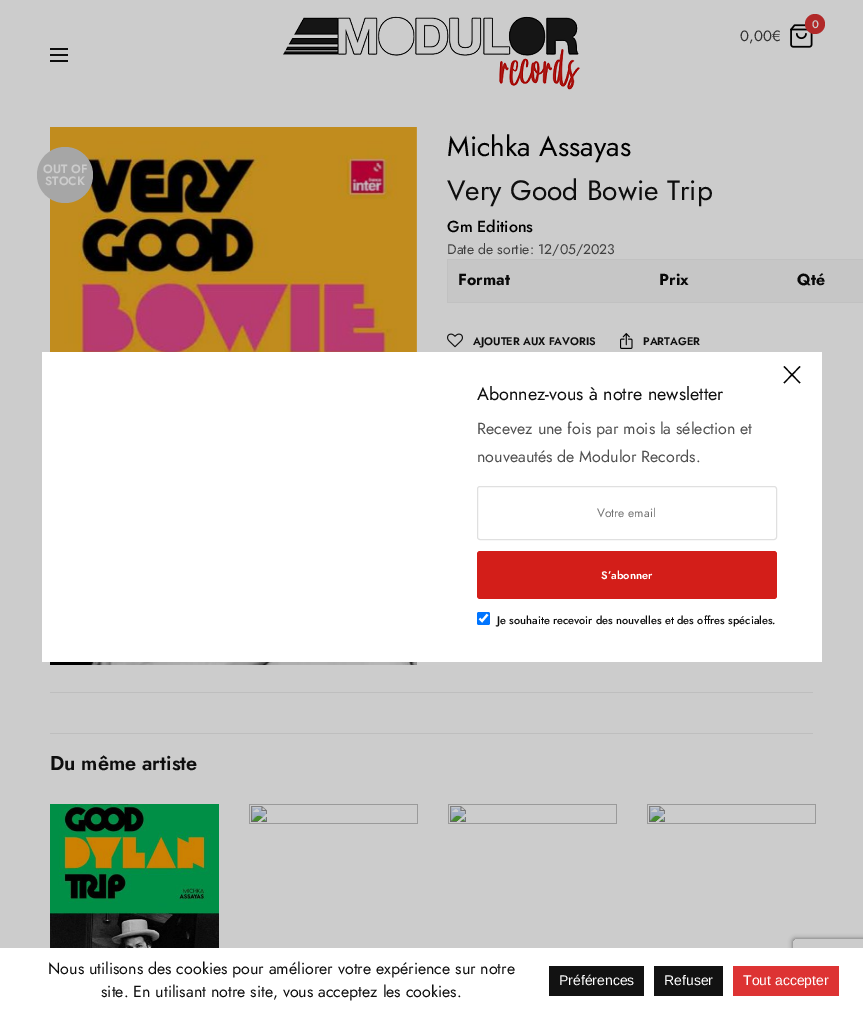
%!PS
<< /PageSize [863 1013] /PageUsesTransparency true >> setpagedevice
/mt/moveto load def
/li/lineto load def
/ct/curveto load def
/cp/closepath load def
/fl/fill load def
/st/stroke load def
/gs/gsave load def
/gr/grestore load def
/lw/setlinewidth load def
/co { dup -16 bitshift 255 div exch dup -8 bitshift 255 and 255 div exch 255 and 255 div setrgbcolor } def
/fn { [ exch dup neg 0 0 3 -1 roll 0 0 ] selectfont } def
/tx { co fn moveto show } def
/bx { co rectfill } def
/al { dup .setfillconstantalpha .setstrokeconstantalpha } def
/ci { newpath 0 360 arc closepath } def
/rr { 5 dict begin { /r /h /w /y /x } { exch def } forall
  x r add y moveto x w add y 2 copy h add r arct x w add y h add x 1 index r arct
  x y h add x y r arct x y 2 copy exch w add exch r arct closepath end } def
/sh { 12 dict begin { /a /b /q /h /w /y /x } { exch def } forall gsave /was 0 def
  9 -2 -9 { dup b mul 4 div /e exch def 1 sub .425 mul 2.718 exch exp 1 add a .99 .min exch div /now exch def
    1 1 now sub 1 was sub div sub al /was now def
    w h .min e 2 mul add 0 gt { x e sub y e sub w e 2 mul add h e 2 mul add
      q e add b .6 mul add w h .min 2 div e add .min 0 .max rr fill } if } for grestore end } def
/im { 5 dict begin { /h /w /y /x /name } { exch def } forall
  gsave x y translate w h scale
  w h 8 [w 0 0 h 0 0] name (r) file false 3 colorimage grestore end } def
0 .pushpdf14devicefilter
0 1013 translate 1 -1 scale
4 setmiterlimit
0 0 863 1013 16#CCCCCC bx
(media/1.raw) 283 16 297 74 im
(media/2.raw) 790 24 23 24 im
16#B12929 co
815 24 10 ci fl
50 48 18 2 16#0E0E0E bx
50 54 18 2 16#0E0E0E bx
50 60 18 2 16#0E0E0E bx
(media/3.raw) 50 127 367 538 im
16#A6A6A6 co
65 175 28 ci fl
448 260 415 42 16#C6C6C6 bx
447 259 416 1 16#C1C1C1 bx
447 302 416 1 16#C1C1C1 bx
447 259 1 44 16#C1C1C1 bx
(media/4.raw) 447 333 16 15 im
(media/5.raw) 620 333 13 16 im
50 692 763 1 16#BEBEBE bx
50 733 763 1 16#BEBEBE bx
(media/6.raw) 50 804 169 144 im
(media/7.raw) 249 804 169 20 im
(media/7.raw) 448 804 169 20 im
(media/7.raw) 647 804 169 20 im
42 352 780 310 16#FFFFFF bx
16#000000 co
1.2 lw
784 366.5 mt 800 383 li 784 383 mt 800 366.5 li st
16#E0E0E0 co
1 lw
477.5 486.5 299 53 2.5 rr st
16#D31E19 co
477 551 300 48 3 rr fl
16#0075FF co
477 612 13 13 2 rr fl
16#FFFFFF co
2.1 lw
479.5 618.5 mt 482 621 li 487.5 614.5 li st
gs
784 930 mt 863 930 li 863 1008 li 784 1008 li cp 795 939 mt 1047 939 li 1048 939 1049 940 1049 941 ct 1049 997 li 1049 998 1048 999 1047 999 ct 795 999 li 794 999 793 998 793 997 ct 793 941 li 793 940 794 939 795 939 ct cp eoclip newpath
16#666666 co
793 939 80 60 2 2.5 1 sh
gr
0 948 863 65 16#FFFFFF bx
549 966 95 30 16#121212 bx
654 966 69 30 16#121212 bx
733 966 106 30 16#DD3333 bx
(0) 812 28 /Jost-Medium 11 16#CCCCCC tx
(0,00€) 740 41 /Jost-Regular 15 16#333333 tx
(OUT OF) 43 173 /Jost-SemiBold 12 16#CCCCCC tx
(STOCK) 45 185 /Jost-SemiBold 12 16#CCCCCC tx
(Michka Assayas) 447 156 /Jost-Regular 28 16#000000 tx
(Very Good Bowie Trip) 447 200 /Jost-Regular 28 16#0E0E0E tx
(Gm Editions) 447 232 /Jost-Medium 16 16#000000 tx
(Date de sortie: 12/05/2023) 447 254 /Jost-Regular 14 16#3F3F3F tx
(Format) 458 285 /Jost-Bold 16 16#080808 tx
(Prix) 659 285 /Jost-Bold 16 16#080808 tx
(Qté) 797 285 /Jost-Bold 16 16#080808 tx
(AJOUTER AUX FAVORIS) 473 345 /Jost-SemiBold 11 16#0E0E0E tx
(PARTAGER) 643 345 /Jost-SemiBold 11 16#0E0E0E tx
(Du même artiste) 50 770 /Jost-SemiBold 20 16#0E0E0E tx
(Abonnez-vous à notre newsletter) 477 400 /Jost-Regular 18 16#0E0E0E tx
(Recevez une fois par mois la sélection et) 477 434 /Jost-Regular 16 16#4F4F4F tx
(nouveautés de Modulor Records.) 477 462 /Jost-Regular 16 16#4F4F4F tx
(Votre email) 597 517 /Jost-Regular 12 16#717171 tx
(S’abonner) 601 579 /Jost-SemiBold 11 16#FFFFFF tx
(Je souhaite recevoir des nouvelles et des offres spéciales.) 497 624 /Jost-Medium 11 16#0E0E0E tx
(Nous utilisons des cookies pour améliorer votre expérience sur notre) 48 974 /Jost-Regular 16 16#0E0E0E tx
(site. En utilisant notre site, vous acceptez les cookies.) 101 997 /Jost-Regular 16 16#0E0E0E tx
(Préférences) 559 985 /LiberationSans-Regular 14 16#FFFFFF tx
(Refuser) 664 985 /LiberationSans-Regular 14 16#FFFFFF tx
(Tout accepter) 743 985 /LiberationSans-Regular 14 16#FFFFFF tx
.poppdf14devicefilter showpage
